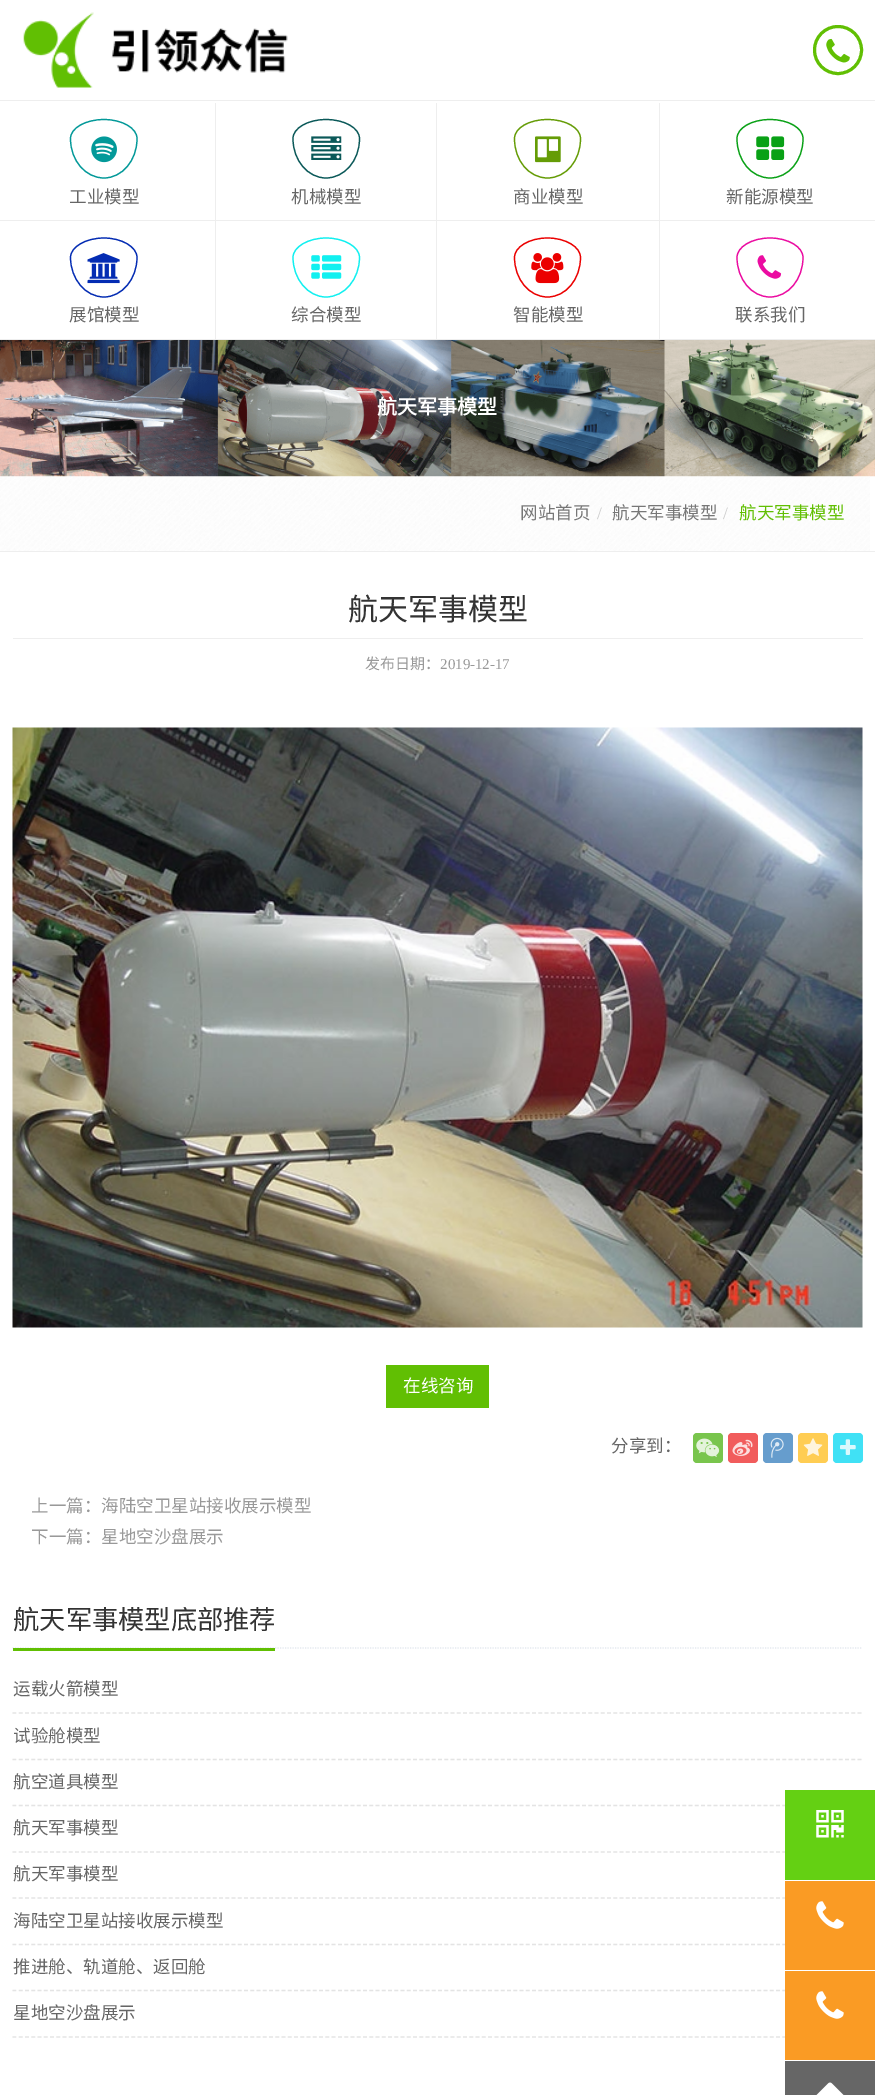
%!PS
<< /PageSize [875 2095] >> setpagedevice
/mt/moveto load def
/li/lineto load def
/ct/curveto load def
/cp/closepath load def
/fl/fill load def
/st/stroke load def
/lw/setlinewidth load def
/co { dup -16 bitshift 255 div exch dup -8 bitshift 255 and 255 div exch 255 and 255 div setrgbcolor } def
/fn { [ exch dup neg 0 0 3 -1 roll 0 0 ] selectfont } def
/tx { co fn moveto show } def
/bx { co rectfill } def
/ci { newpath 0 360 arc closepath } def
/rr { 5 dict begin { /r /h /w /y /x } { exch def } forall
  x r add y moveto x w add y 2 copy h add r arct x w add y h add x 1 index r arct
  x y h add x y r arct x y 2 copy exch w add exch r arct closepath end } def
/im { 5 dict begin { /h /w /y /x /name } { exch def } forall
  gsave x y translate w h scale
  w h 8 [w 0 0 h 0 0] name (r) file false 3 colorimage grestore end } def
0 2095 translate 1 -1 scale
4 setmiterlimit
0 0 875 2095 16#FFFFFF bx
0 100 875 1 16#EEEEEE bx
(media/1.raw) 23 12 265 76 im
16#61BF03 co
3 lw
838 50 23.5 ci st
(media/2.raw) 826 38 24 25 im
215 103 1 237 16#EEEEEE bx
0 220 216 1 16#EEEEEE bx
16#039999 co
1.2 lw
104 119.5 mt 122 119.5 137 128 137 138.5 ct 137 139 li 137 160.5 122 178 104 178 ct 85.5 178 70.5 160.5 70.5 139 ct 70.5 138.5 li 70.5 128 85.5 119.5 104 119.5 ct cp st
(media/3.raw) 91 136 26 27 im
436 103 1 237 16#EEEEEE bx
216 220 222 1 16#EEEEEE bx
16#0B5959 co
326 119.5 mt 344.5 119.5 359.5 128 359.5 138.5 ct 359.5 139 li 359.5 160.5 344.5 178 326 178 ct 308 178 293 160.5 293 139 ct 293 138.5 li 293 128 308 119.5 326 119.5 ct cp st
(media/4.raw) 311 136 31 24 im
659 103 1 237 16#EEEEEE bx
438 220 437 1 16#EEEEEE bx
16#659C06 co
547.5 119.5 mt 566 119.5 580.5 128 580.5 138.5 ct 580.5 139 li 580.5 160.5 566 178 547.5 178 ct 529 178 514.5 160.5 514.5 139 ct 514.5 138.5 li 514.5 128 529 119.5 547.5 119.5 ct cp st
(media/5.raw) 535 136 26 27 im
16#09A116 co
770 119.5 mt 788.5 119.5 803 128 803 138.5 ct 803 139 li 803 160.5 788.5 178 770 178 ct 751.5 178 737 160.5 737 139 ct 737 138.5 li 737 128 751.5 119.5 770 119.5 ct cp st
(media/6.raw) 756 136 29 24 im
0 339 875 1 16#EEEEEE bx
16#042CB3 co
104 238 mt 122 238 137 247 137 257.5 ct 137 279 122 297 104 297 ct 85.5 297 70.5 279 70.5 257.5 ct 70.5 247 85.5 238 104 238 ct cp st
(media/7.raw) 87 253 33 31 im
16#11F0F0 co
326 238 mt 344.5 238 359.5 247 359.5 257.5 ct 359.5 279 344.5 297 326 297 ct 308 297 293 279 293 257.5 ct 293 247 308 238 326 238 ct cp st
(media/8.raw) 311 255 31 24 im
16#EB0000 co
547.5 238 mt 566 238 580.5 247 580.5 257.5 ct 580.5 279 566 297 547.5 297 ct 529 297 514.5 279 514.5 257.5 ct 514.5 247 529 238 547.5 238 ct cp st
(media/9.raw) 531 253 33 31 im
16#EB0CA1 co
770 238 mt 788.5 238 803 247 803 257.5 ct 803 279 788.5 297 770 297 ct 751.5 297 737 279 737 257.5 ct 737 247 751.5 238 770 238 ct cp st
(media/10.raw) 757 255 25 24 im
(media/11.raw) 0 340 875 137 im
(media/12.raw) 0 477 870 74 im
0 551 875 1 16#EEEEEE bx
13 638 850 1 16#EEEEEE bx
(media/13.raw) 12 727 851 601 im
386 1365 103 43 16#61BF03 bx
16#79C54D co
693 1433 30 30 4 rr fl
(media/14.raw) 696 1438 24 19 im
16#F15C5C co
728 1433 30 30 4 rr fl
(media/15.raw) 732 1439 21 17 im
16#669DCD co
763 1433 30 30 4 rr fl
(media/16.raw) 770 1437 14 21 im
16#FFCD53 co
798 1433 30 30 4 rr fl
(media/17.raw) 803 1438 20 18 im
16#40E1F5 co
833 1433 30 30 4 rr fl
(media/18.raw) 840 1439 16 16 im
16#E4E9F0 co
[1.25 1.25] 0 setdash
12.5 1648 mt 862.5 1648 li st
13 1648 262 3 16#61BF03 bx
16#E4E4E4 co
[3.75 2.51] 0 setdash
12.5 1713 mt 862.5 1713 li st
12.5 1759.5 mt 862.5 1759.5 li st
12.5 1805.5 mt 862.5 1805.5 li st
12.5 1852 mt 862.5 1852 li st
12.5 1898 mt 862.5 1898 li st
12.5 1944.5 mt 862.5 1944.5 li st
12.5 1990.5 mt 862.5 1990.5 li st
12.5 2037 mt 862.5 2037 li st
785 1790 90 90 16#64D013 bx
(media/19.raw) 816 1810 28 28 im
785 1881 90 89 16#FA9B24 bx
(media/20.raw) 816 1901 28 28 im
785 1971 90 89 16#FA9B24 bx
(media/20.raw) 816 1991 28 28 im
785 2061 90 34 16#666666 bx
(media/21.raw) 816 2082 28 13 im
(工业模型) 69 203 /NotoSansCJKSC-Regular 17.5 16#666666 tx
(机械模型) 291 203 /NotoSansCJKSC-Regular 17.5 16#666666 tx
(商业模型) 513 203 /NotoSansCJKSC-Regular 17.5 16#666666 tx
(新能源模型) 726 203 /NotoSansCJKSC-Regular 17.5 16#666666 tx
(展馆模型) 69 321 /NotoSansCJKSC-Regular 17.5 16#666666 tx
(综合模型) 291 321 /NotoSansCJKSC-Regular 17.5 16#666666 tx
(智能模型) 513 321 /NotoSansCJKSC-Regular 17.5 16#666666 tx
(联系我们) 735 321 /NotoSansCJKSC-Regular 17.5 16#666666 tx
(航天军事模型) 377 414 /NotoSansCJKSC-Bold 20 16#FFFFFF tx
(网站首页) 520 519 /NotoSansCJKSC-Regular 17.5 16#777777 tx
(/) 597 519 /LiberationSerif-Regular 17.5 16#CCCCCC tx
(航天军事模型) 612 519 /NotoSansCJKSC-Regular 17.5 16#777777 tx
(/) 723 519 /LiberationSerif-Regular 17.5 16#CCCCCC tx
(航天军事模型) 739 519 /NotoSansCJKSC-Regular 17.5 16#61BF03 tx
(航天军事模型) 348 620 /NotoSansCJKSC-Regular 30 16#333333 tx
(发布日期：) 365 669 /NotoSansCJKSC-Regular 15 16#999999 tx
(2019-12-17) 440 669 /LiberationSerif-Regular 15 16#999999 tx
(在线咨询) 403 1392 /NotoSansCJKSC-Regular 17.5 16#FFFFFF tx
(分享到：) 611 1452 /NotoSansCJKSC-Regular 17.5 16#666666 tx
(上一篇：海陆空卫星站接收展示模型) 31 1512 /NotoSansCJKSC-Regular 17.5 16#999999 tx
(下一篇：星地空沙盘展示) 31 1543 /NotoSansCJKSC-Regular 17.5 16#999999 tx
(航天军事模型底部推荐) 13 1629 /NotoSansCJKSC-Regular 26.25 16#333333 tx
(运载火箭模型) 13 1695 /NotoSansCJKSC-Regular 17.5 16#666666 tx
(试验舱模型) 13 1742 /NotoSansCJKSC-Regular 17.5 16#666666 tx
(航空道具模型) 13 1788 /NotoSansCJKSC-Regular 17.5 16#666666 tx
(航天军事模型) 13 1834 /NotoSansCJKSC-Regular 17.5 16#666666 tx
(航天军事模型) 13 1880 /NotoSansCJKSC-Regular 17.5 16#666666 tx
(海陆空卫星站接收展示模型) 13 1927 /NotoSansCJKSC-Regular 17.5 16#666666 tx
(推进舱、轨道舱、返回舱) 13 1973 /NotoSansCJKSC-Regular 17.5 16#666666 tx
(星地空沙盘展示) 13 2019 /NotoSansCJKSC-Regular 17.5 16#666666 tx
showpage
